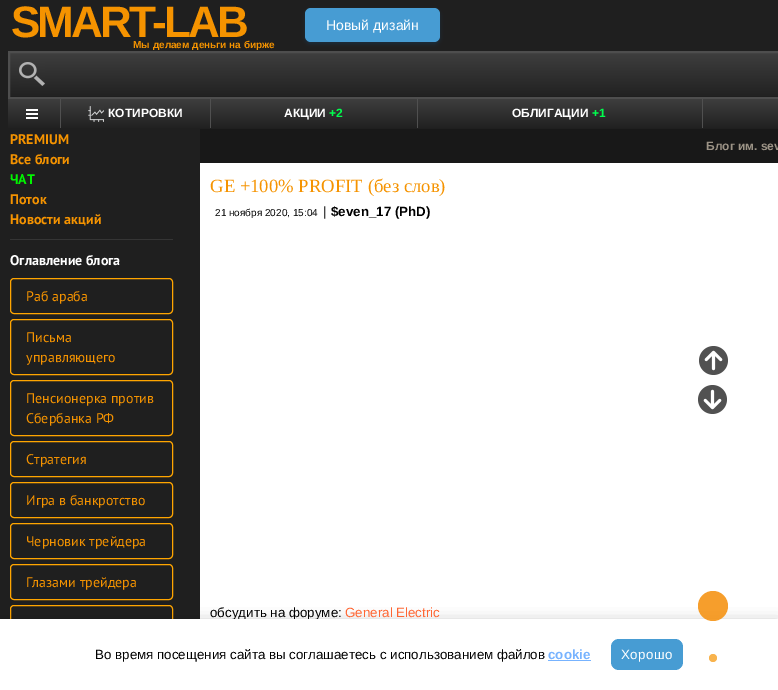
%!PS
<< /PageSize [778 690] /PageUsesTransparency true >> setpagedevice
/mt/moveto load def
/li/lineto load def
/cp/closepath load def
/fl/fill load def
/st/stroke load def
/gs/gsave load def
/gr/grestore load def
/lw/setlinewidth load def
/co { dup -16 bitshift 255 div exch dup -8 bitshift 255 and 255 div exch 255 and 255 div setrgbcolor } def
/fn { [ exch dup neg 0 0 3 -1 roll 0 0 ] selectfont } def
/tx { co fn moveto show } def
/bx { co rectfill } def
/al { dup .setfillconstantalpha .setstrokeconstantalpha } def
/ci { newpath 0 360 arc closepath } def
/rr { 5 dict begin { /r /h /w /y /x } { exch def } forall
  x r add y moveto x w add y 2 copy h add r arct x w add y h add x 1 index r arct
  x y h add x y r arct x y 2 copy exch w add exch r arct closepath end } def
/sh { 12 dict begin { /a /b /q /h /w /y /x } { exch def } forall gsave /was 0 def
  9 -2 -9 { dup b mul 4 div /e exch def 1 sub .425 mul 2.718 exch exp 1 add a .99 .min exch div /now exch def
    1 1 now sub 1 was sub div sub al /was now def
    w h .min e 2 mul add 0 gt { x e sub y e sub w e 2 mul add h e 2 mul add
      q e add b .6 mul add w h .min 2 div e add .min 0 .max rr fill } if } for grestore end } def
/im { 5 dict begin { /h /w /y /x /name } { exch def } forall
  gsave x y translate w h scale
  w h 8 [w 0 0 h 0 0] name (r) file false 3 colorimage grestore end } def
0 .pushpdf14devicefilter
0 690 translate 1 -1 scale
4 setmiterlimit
0 0 778 690 16#1F1F1F bx
16#0B5483 co
305 10 135 34 6 2 .3 sh
16#479CD3 co
305 8 135 34 6 rr fl
gs 10 53 mt 778 53 li 778 96 li 10 96 li cp clip newpath
<< /ShadingType 2 /ColorSpace /DeviceRGB /Coords [570 53 570 97] /Extend [true true] /Function << /FunctionType 2 /Domain [0 1] /C0 [.243 .243 .243] /C1 [.129 .129 .129] /N 1 >> >> shfill gr
16#4E4E4E co
2 lw
9 52 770 46 rectstroke
(media/1.raw) 19 62 26 24 im
gs 8 99 mt 778 99 li 778 128 li 8 128 li cp clip newpath
<< /ShadingType 2 /ColorSpace /DeviceRGB /Coords [570 99 570 128] /Extend [true true] /Function << /FunctionType 2 /Domain [0 1] /C0 [.243 .243 .243] /C1 [.129 .129 .129] /N 1 >> >> shfill gr
(media/2.raw) 26 109 12 10 im
60 99 1 29 16#505050 bx
(media/3.raw) 88 106 16 16 im
210 99 1 29 16#505050 bx
417 99 1 29 16#505050 bx
702 99 1 29 16#505050 bx
10 239 163 1 16#353535 bx
16#FFA500 co
1 lw
10.5 278.5 162 35 3.5 rr st
10.5 319.5 162 55 3.5 rr st
10.5 380.5 162 55 3.5 rr st
10.5 441.5 162 35 3.5 rr st
10.5 482.5 162 35 3.5 rr st
10.5 523.5 162 35 3.5 rr st
10.5 564.5 162 35 3.5 rr st
10.5 605.5 162 35 3.5 rr st
200 129 578 34 16#181818 bx
200 163 578 456 16#FFFFFF bx
(media/4.raw) 699 346 29 29 im
(media/5.raw) 698 385 29 29 im
16#000000 co
0 624 778 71 0 7.5 .35 sh
/LiberationSans-Bold 44 fn
16#F59300 co
11 37 mt -3 0 (SMART-LAB) ashow
(Мы делаем деньги на бирже) 133 48 /LiberationSans-Bold 10 16#F59300 tx
(Новый дизайн) 326 30 /LiberationSans-Regular 14 16#FFFFFF tx
(КОТИРОВКИ) 108 117 /LiberationSans-Bold 12 16#FFFFFF tx
(АКЦИИ) 284 117 /LiberationSans-Bold 12 16#FFFFFF tx
(+2) 329 117 /LiberationSans-Bold 12 16#00FF4E tx
(ОБЛИГАЦИИ) 512 117 /LiberationSans-Bold 12 16#FFFFFF tx
(+1) 592 117 /LiberationSans-Bold 12 16#00FF4E tx
(PREMIUM) 10 144 /PTSans-Bold 14 16#F59300 tx
(Все блоги) 10 164 /PTSans-Bold 14 16#F59300 tx
(ЧАТ) 10 184 /PTSans-Bold 14 16#00F500 tx
(Поток) 10 204 /PTSans-Bold 14 16#F59300 tx
(Новости акций) 10 224 /PTSans-Bold 14 16#F59300 tx
(Оглавление блога) 10 265 /PTSans-Bold 14 16#FFFFFF tx
(Раб араба) 26 301 /PTSans-Regular 14 16#F59300 tx
(Письма) 26 342 /PTSans-Regular 14 16#F59300 tx
(управляющего) 26 362 /PTSans-Regular 14 16#F59300 tx
(Пенсионерка против) 26 403 /PTSans-Regular 14 16#F59300 tx
(Сбербанка РФ) 26 423 /PTSans-Regular 14 16#F59300 tx
(Стратегия) 26 464 /PTSans-Regular 14 16#F59300 tx
(Игра в банкротство) 26 505 /PTSans-Regular 14 16#F59300 tx
(Черновик трейдера) 26 546 /PTSans-Regular 14 16#F59300 tx
(Глазами трейдера) 26 587 /PTSans-Regular 14 16#F59300 tx
(Блог им. sev) 706 150 /LiberationSans-Bold 12 16#9C9386 tx
(GE +100% PROFIT \(без слов\)) 210 192 /LiberationSerif-Regular 18.7 16#F59300 tx
(21 ноября 2020, 15:04) 215 216 /LiberationSans-Regular 10 16#000000 tx
(|) 323 216 /LiberationSans-Regular 13.35 16#000000 tx
($even_17 \(PhD\)) 331 216 /LiberationSans-Bold 13.35 16#000000 tx
(обсудить на форуме:) 210 617 /LiberationSans-Regular 13.35 16#000000 tx
(General Electric) 345 617 /LiberationSans-Regular 13.35 16#FF6633 tx
0 619 778 71 16#FFFFFF bx
16#F8B34D co
713 658 4 ci fl
0.87 al
16#F5900D co
713 606 15 ci fl
1 al
(Во время посещения сайта вы соглашаетесь с использованием файлов) 95 659 /LiberationSans-Regular 13.35 16#000000 tx
(cookie) 548 659 /LiberationSans-Bold 13.35 16#77B3FF tx
548 660 43 1 16#77B3FF bx
16#479CD3 co
611 639 72 31 8 rr fl
/LiberationSans-Regular 13.35 fn
16#FFFFFF co
621 659 mt .5 0 (Хорошо) ashow
.poppdf14devicefilter showpage
